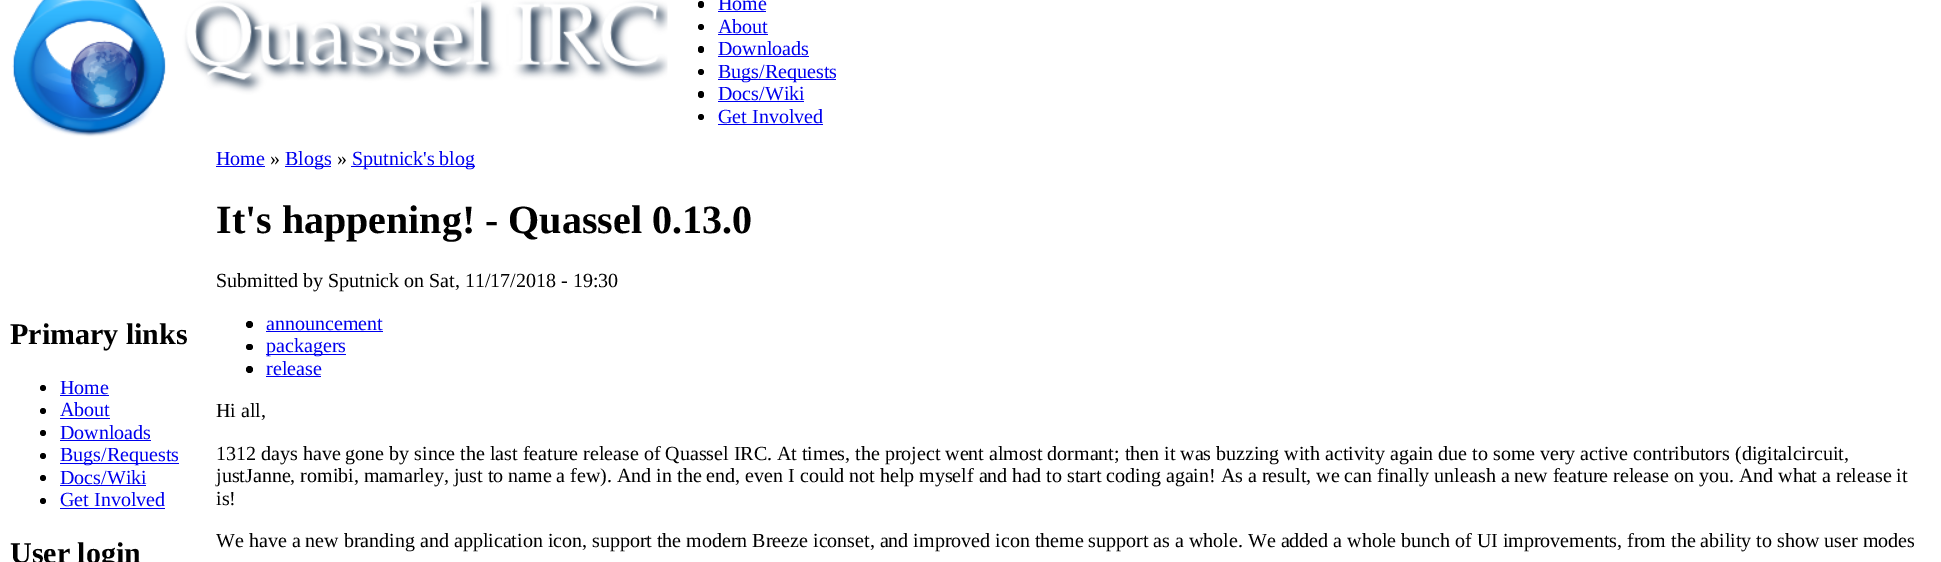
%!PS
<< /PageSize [1941 562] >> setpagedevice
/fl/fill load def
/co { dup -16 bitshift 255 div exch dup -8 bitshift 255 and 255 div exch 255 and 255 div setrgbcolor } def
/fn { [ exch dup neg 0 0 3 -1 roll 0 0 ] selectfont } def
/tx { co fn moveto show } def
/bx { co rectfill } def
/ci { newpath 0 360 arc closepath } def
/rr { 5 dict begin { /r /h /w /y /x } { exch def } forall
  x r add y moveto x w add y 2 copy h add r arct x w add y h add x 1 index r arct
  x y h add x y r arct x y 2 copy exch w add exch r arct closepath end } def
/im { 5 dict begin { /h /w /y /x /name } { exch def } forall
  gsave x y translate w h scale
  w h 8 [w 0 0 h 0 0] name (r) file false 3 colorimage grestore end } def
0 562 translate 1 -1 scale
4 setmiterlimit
0 0 1941 562 16#FFFFFF bx
(media/1.raw) 12 0 656 137 im
16#000000 co
698 1 6 7 3 rr fl
718 11 48 1 16#0000EE bx
16#000000 co
701 27 3 ci fl
718 34 50 1 16#0000EE bx
16#000000 co
698 46 6 7 3 rr fl
718 56 91 1 16#0000EE bx
16#000000 co
701 72 3 ci fl
718 79 118 1 16#0000EE bx
16#000000 co
698 91 6 7 3 rr fl
718 101 86 1 16#0000EE bx
16#000000 co
701 117 3 ci fl
718 124 105 1 16#0000EE bx
16#000000 co
43 388 3 ci fl
60 395 49 1 16#0000EE bx
16#000000 co
43 411 3 ci fl
60 418 50 1 16#0000EE bx
16#000000 co
43 433 3 ci fl
60 440 91 1 16#0000EE bx
16#000000 co
43 456 3 ci fl
60 463 119 1 16#0000EE bx
16#000000 co
43 478 3 ci fl
60 485 86 1 16#0000EE bx
16#000000 co
43 501 3 ci fl
60 508 105 1 16#0000EE bx
216 166 49 1 16#0000EE bx
285 166 46 1 16#0000EE bx
351 166 124 1 16#0000EE bx
16#000000 co
249.5 324.5 3.5 ci fl
266 331 117 1 16#0000EE bx
16#000000 co
246 344 7 6 3 rr fl
266 354 80 1 16#0000EE bx
16#000000 co
249.5 369.5 3.5 ci fl
266 376 55 1 16#0000EE bx
(Home) 718 10 /LiberationSerif-Regular 20 16#0000EE tx
(About) 718 33 /LiberationSerif-Regular 20 16#0000EE tx
(Downloads) 718 55 /LiberationSerif-Regular 20 16#0000EE tx
(Bugs/Requests) 718 78 /LiberationSerif-Regular 20 16#0000EE tx
(Docs/Wiki) 718 100 /LiberationSerif-Regular 20 16#0000EE tx
(Get Involved) 718 123 /LiberationSerif-Regular 20 16#0000EE tx
(Primary links) 10 344 /LiberationSerif-Bold 30 16#000000 tx
(Home) 60 394 /LiberationSerif-Regular 20 16#0000EE tx
(About) 60 416 /LiberationSerif-Regular 20 16#0000EE tx
(Downloads) 60 439 /LiberationSerif-Regular 20 16#0000EE tx
(Bugs/Requests) 60 461 /LiberationSerif-Regular 20 16#0000EE tx
(Docs/Wiki) 60 484 /LiberationSerif-Regular 20 16#0000EE tx
(Get Involved) 60 506 /LiberationSerif-Regular 20 16#0000EE tx
(User login) 10 563 /LiberationSerif-Bold 30 16#000000 tx
(Home) 216 165 /LiberationSerif-Regular 20 16#0000EE tx
(») 270 165 /LiberationSerif-Regular 20 16#000000 tx
(Blogs) 285 165 /LiberationSerif-Regular 20 16#0000EE tx
(») 337 165 /LiberationSerif-Regular 20 16#000000 tx
(Sputnick's blog) 352 165 /LiberationSerif-Regular 20 16#0000EE tx
(It's happening! - Quassel 0.13.0) 216 233 /LiberationSerif-Bold 40 16#000000 tx
(Submitted by Sputnick on Sat, 11/17/2018 - 19:30) 216 287 /LiberationSerif-Regular 20 16#000000 tx
(announcement) 266 330 /LiberationSerif-Regular 20 16#0000EE tx
(packagers) 266 352 /LiberationSerif-Regular 20 16#0000EE tx
(release) 266 375 /LiberationSerif-Regular 20 16#0000EE tx
(Hi all,) 216 417 /LiberationSerif-Regular 20 16#000000 tx
(1312 days have gone by since the last feature release of Quassel IRC. At times, the project went almost dormant; then it was buzzing with activity again due to some very active contributors \(digitalcircuit,) 216 460 /LiberationSerif-Regular 20 16#000000 tx
(justJanne, romibi, mamarley, just to name a few\). And in the end, even I could not help myself and had to start coding again! As a result, we can finally unleash a new feature release on you. And what a release it) 216 482 /LiberationSerif-Regular 20 16#000000 tx
(is!) 216 505 /LiberationSerif-Regular 20 16#000000 tx
(We have a new branding and application icon, support the modern Breeze iconset, and improved icon theme support as a whole. We added a whole bunch of UI improvements, from the ability to show user modes) 216 547 /LiberationSerif-Regular 20 16#000000 tx
showpage
